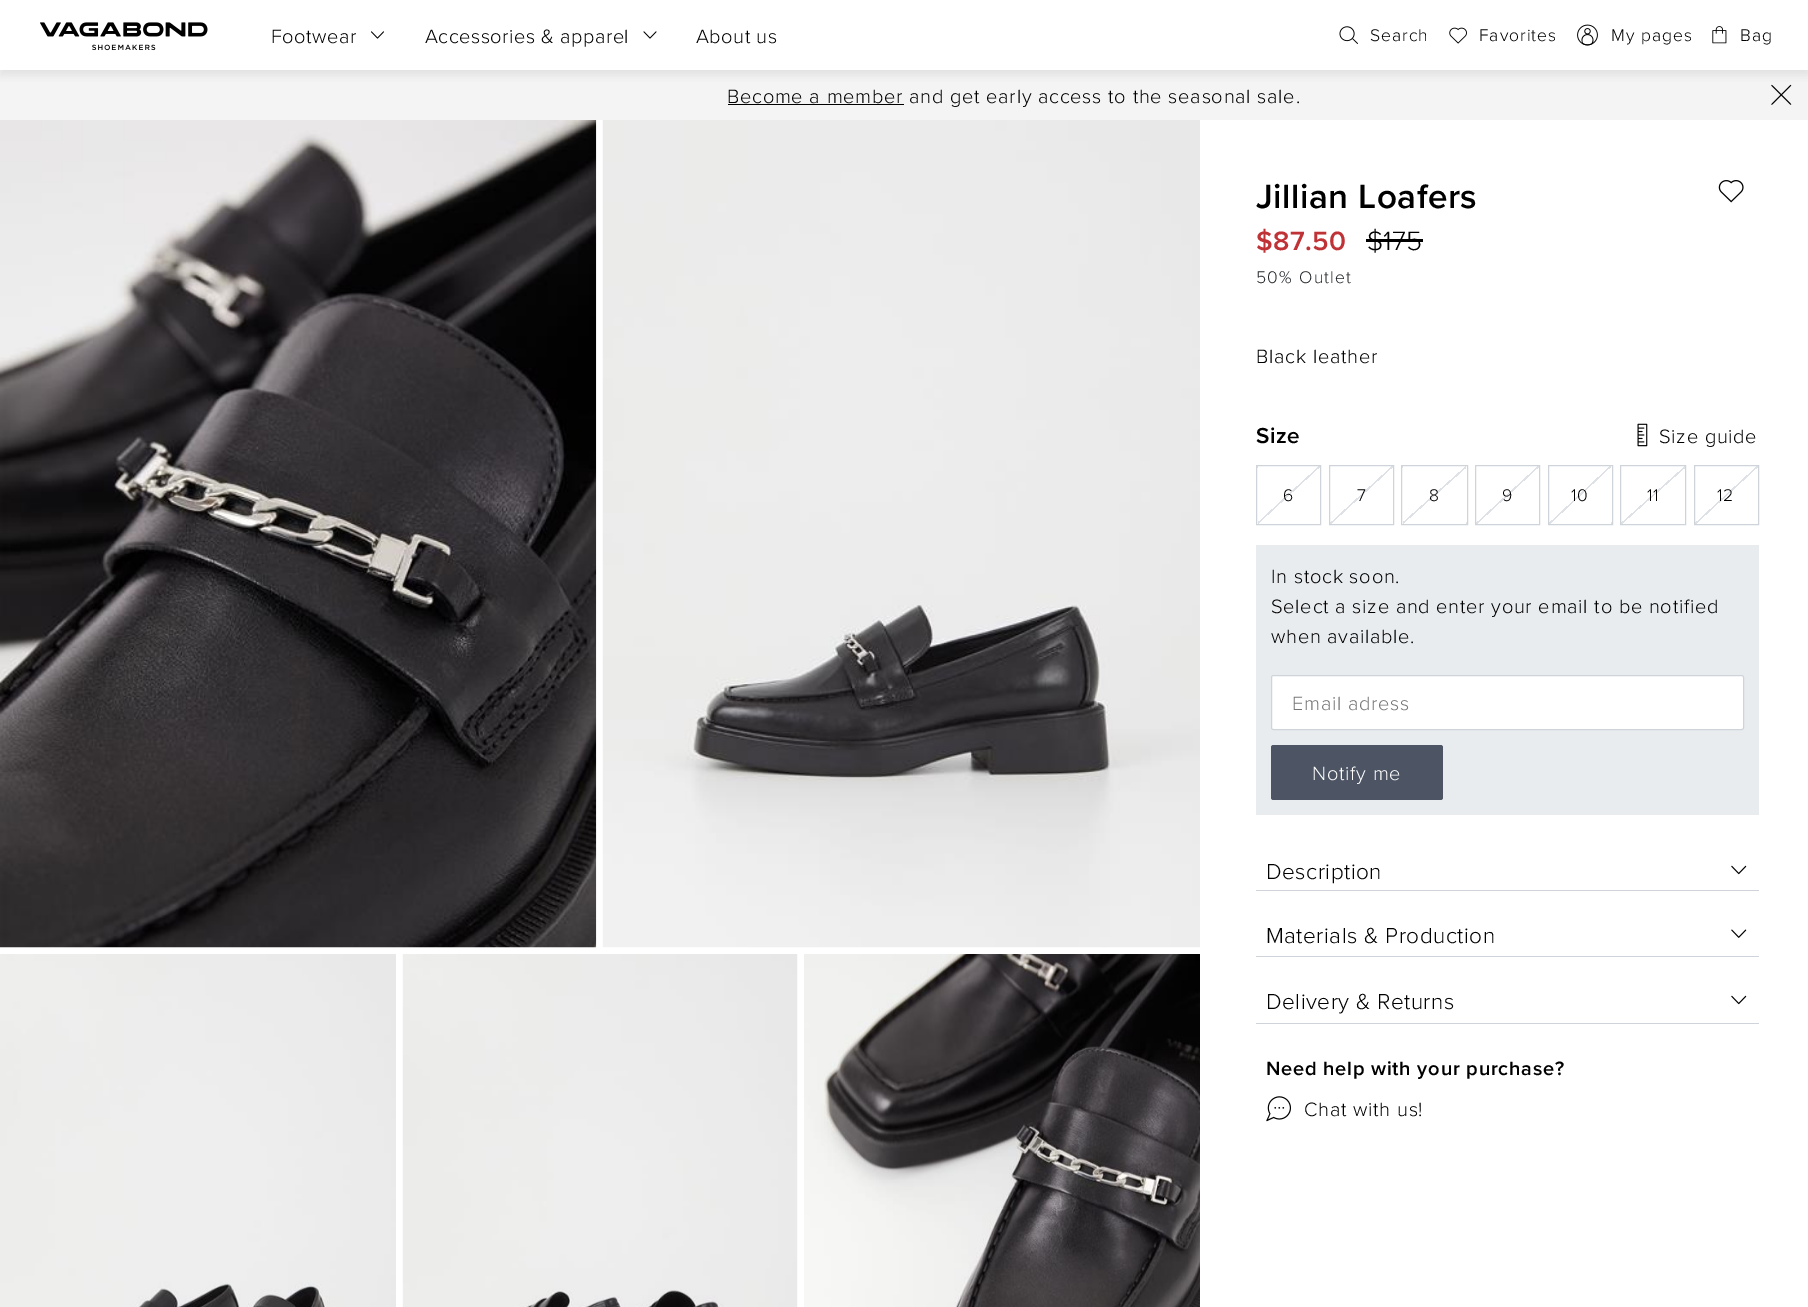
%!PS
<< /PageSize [1808 1307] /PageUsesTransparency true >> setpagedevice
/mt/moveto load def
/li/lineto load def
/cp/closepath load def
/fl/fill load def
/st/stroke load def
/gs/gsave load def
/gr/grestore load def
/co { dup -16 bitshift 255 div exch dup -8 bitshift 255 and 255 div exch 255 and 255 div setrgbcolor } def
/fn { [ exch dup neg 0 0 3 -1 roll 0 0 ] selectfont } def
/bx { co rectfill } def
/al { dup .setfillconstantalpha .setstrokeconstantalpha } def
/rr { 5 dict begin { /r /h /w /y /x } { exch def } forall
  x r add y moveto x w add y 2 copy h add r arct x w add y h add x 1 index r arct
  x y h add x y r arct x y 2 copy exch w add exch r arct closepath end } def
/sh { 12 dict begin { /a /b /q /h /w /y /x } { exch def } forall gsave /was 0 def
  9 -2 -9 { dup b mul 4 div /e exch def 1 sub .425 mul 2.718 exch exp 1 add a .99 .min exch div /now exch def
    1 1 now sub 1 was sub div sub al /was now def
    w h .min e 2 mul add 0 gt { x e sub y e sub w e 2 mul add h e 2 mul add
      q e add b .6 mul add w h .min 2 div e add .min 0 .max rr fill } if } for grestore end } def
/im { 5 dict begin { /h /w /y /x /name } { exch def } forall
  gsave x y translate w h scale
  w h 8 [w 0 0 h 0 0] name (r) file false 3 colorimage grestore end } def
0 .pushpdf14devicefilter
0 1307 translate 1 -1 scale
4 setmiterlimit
0 0 1808 1307 16#FFFFFF bx
0 70 1808 50 16#F4F4F4 bx
(media/8.raw) 1771 84 21 21 im
gs
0 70 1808 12 rectclip
16#ABABAB co
0 5 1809 70 0 5 .25 sh
gr
(media/1.raw) 40 22 168 29 im
(media/2.raw) 371 31 13 8 im
(media/3.raw) 643 31 14 8 im
(media/4.raw) 1339 26 19 18 im
(media/5.raw) 1449 27 18 17 im
(media/6.raw) 1577 24 21 22 im
(media/7.raw) 1712 26 15 18 im
728 104 176 1 16#000000 bx
(media/9.raw) 0 120 597 828 im
(media/10.raw) 602 120 598 828 im
(media/11.raw) 0 954 396 353 im
(media/12.raw) 402 954 396 353 im
(media/13.raw) 804 954 396 353 im
(media/14.raw) 1718 180 26 23 im
1366 239 18 3 16#000000 bx
1384 239 39 3 16#000000 bx
(media/15.raw) 1637 423 11 24 im
gs 1257 466 mt 1258 466 li 1258 468 li 1257 468 li cp clip newpath
<< /ShadingType 2 /ColorSpace /DeviceRGB /Coords [1198 464 1255 526] /Extend [true true] /Function << /FunctionType 3 /Domain [0 1] /Functions [<< /FunctionType 2 /Domain [0 1] /C0 [1 1 1] /C1 [1 1 1] /N 1 >> << /FunctionType 2 /Domain [0 1] /C0 [.871 .886 .902] /C1 [.871 .886 .902] /N 1 >> << /FunctionType 2 /Domain [0 1] /C0 [1 1 1] /C1 [1 1 1] /N 1 >>] /Bounds [.49 .51] /Encode [0 1 0 1 0 1] >> >> shfill gr
gs 1258 466 mt 1320 466 li 1320 524 li 1258 524 li cp clip newpath
<< /ShadingType 2 /ColorSpace /DeviceRGB /Coords [1260 464 1317 526] /Extend [true true] /Function << /FunctionType 3 /Domain [0 1] /Functions [<< /FunctionType 2 /Domain [0 1] /C0 [1 1 1] /C1 [1 1 1] /N 1 >> << /FunctionType 2 /Domain [0 1] /C0 [.871 .886 .902] /C1 [.871 .886 .902] /N 1 >> << /FunctionType 2 /Domain [0 1] /C0 [1 1 1] /C1 [1 1 1] /N 1 >>] /Bounds [.49 .51] /Encode [0 1 0 1 0 1] >> >> shfill gr
16#CED4DA co
1256.5 465.5 64 59 rectstroke
gs 1330 466 mt 1393 466 li 1393 524 li 1330 524 li cp clip newpath
<< /ShadingType 2 /ColorSpace /DeviceRGB /Coords [1333 464 1390 526] /Extend [true true] /Function << /FunctionType 3 /Domain [0 1] /Functions [<< /FunctionType 2 /Domain [0 1] /C0 [1 1 1] /C1 [1 1 1] /N 1 >> << /FunctionType 2 /Domain [0 1] /C0 [.871 .886 .902] /C1 [.871 .886 .902] /N 1 >> << /FunctionType 2 /Domain [0 1] /C0 [1 1 1] /C1 [1 1 1] /N 1 >>] /Bounds [.49 .51] /Encode [0 1 0 1 0 1] >> >> shfill gr
1329.5 465.5 64 59 rectstroke
gs 1402 466 mt 1403 466 li 1403 468 li 1402 468 li cp clip newpath
<< /ShadingType 2 /ColorSpace /DeviceRGB /Coords [1342 463 1399 527] /Extend [true true] /Function << /FunctionType 3 /Domain [0 1] /Functions [<< /FunctionType 2 /Domain [0 1] /C0 [1 1 1] /C1 [1 1 1] /N 1 >> << /FunctionType 2 /Domain [0 1] /C0 [.871 .886 .902] /C1 [.871 .886 .902] /N 1 >> << /FunctionType 2 /Domain [0 1] /C0 [1 1 1] /C1 [1 1 1] /N 1 >>] /Bounds [.49 .51] /Encode [0 1 0 1 0 1] >> >> shfill gr
gs 1403 466 mt 1466 466 li 1466 524 li 1403 524 li cp clip newpath
<< /ShadingType 2 /ColorSpace /DeviceRGB /Coords [1406 463 1463 527] /Extend [true true] /Function << /FunctionType 3 /Domain [0 1] /Functions [<< /FunctionType 2 /Domain [0 1] /C0 [1 1 1] /C1 [1 1 1] /N 1 >> << /FunctionType 2 /Domain [0 1] /C0 [.871 .886 .902] /C1 [.871 .886 .902] /N 1 >> << /FunctionType 2 /Domain [0 1] /C0 [1 1 1] /C1 [1 1 1] /N 1 >>] /Bounds [.49 .51] /Encode [0 1 0 1 0 1] >> >> shfill gr
gs 1466 522 mt 1467 522 li 1467 524 li 1466 524 li cp clip newpath
<< /ShadingType 2 /ColorSpace /DeviceRGB /Coords [1470 463 1527 527] /Extend [true true] /Function << /FunctionType 3 /Domain [0 1] /Functions [<< /FunctionType 2 /Domain [0 1] /C0 [1 1 1] /C1 [1 1 1] /N 1 >> << /FunctionType 2 /Domain [0 1] /C0 [.871 .886 .902] /C1 [.871 .886 .902] /N 1 >> << /FunctionType 2 /Domain [0 1] /C0 [1 1 1] /C1 [1 1 1] /N 1 >>] /Bounds [.49 .51] /Encode [0 1 0 1 0 1] >> >> shfill gr
1401.5 465.5 66 59 rectstroke
gs 1476 466 mt 1539 466 li 1539 524 li 1476 524 li cp clip newpath
<< /ShadingType 2 /ColorSpace /DeviceRGB /Coords [1479 464 1536 526] /Extend [true true] /Function << /FunctionType 3 /Domain [0 1] /Functions [<< /FunctionType 2 /Domain [0 1] /C0 [1 1 1] /C1 [1 1 1] /N 1 >> << /FunctionType 2 /Domain [0 1] /C0 [.871 .886 .902] /C1 [.871 .886 .902] /N 1 >> << /FunctionType 2 /Domain [0 1] /C0 [1 1 1] /C1 [1 1 1] /N 1 >>] /Bounds [.49 .51] /Encode [0 1 0 1 0 1] >> >> shfill gr
1475.5 465.5 64 59 rectstroke
gs 1549 466 mt 1611 466 li 1611 524 li 1549 524 li cp clip newpath
<< /ShadingType 2 /ColorSpace /DeviceRGB /Coords [1551 464 1609 526] /Extend [true true] /Function << /FunctionType 3 /Domain [0 1] /Functions [<< /FunctionType 2 /Domain [0 1] /C0 [1 1 1] /C1 [1 1 1] /N 1 >> << /FunctionType 2 /Domain [0 1] /C0 [.871 .886 .902] /C1 [.871 .886 .902] /N 1 >> << /FunctionType 2 /Domain [0 1] /C0 [1 1 1] /C1 [1 1 1] /N 1 >>] /Bounds [.49 .51] /Encode [0 1 0 1 0 1] >> >> shfill gr
gs 1611 522 mt 1612 522 li 1612 524 li 1611 524 li cp clip newpath
<< /ShadingType 2 /ColorSpace /DeviceRGB /Coords [1614 464 1671 526] /Extend [true true] /Function << /FunctionType 3 /Domain [0 1] /Functions [<< /FunctionType 2 /Domain [0 1] /C0 [1 1 1] /C1 [1 1 1] /N 1 >> << /FunctionType 2 /Domain [0 1] /C0 [.871 .886 .902] /C1 [.871 .886 .902] /N 1 >> << /FunctionType 2 /Domain [0 1] /C0 [1 1 1] /C1 [1 1 1] /N 1 >>] /Bounds [.49 .51] /Encode [0 1 0 1 0 1] >> >> shfill gr
1548.5 465.5 64 59 rectstroke
gs 1621 466 mt 1685 466 li 1685 524 li 1621 524 li cp clip newpath
<< /ShadingType 2 /ColorSpace /DeviceRGB /Coords [1625 463 1682 527] /Extend [true true] /Function << /FunctionType 3 /Domain [0 1] /Functions [<< /FunctionType 2 /Domain [0 1] /C0 [1 1 1] /C1 [1 1 1] /N 1 >> << /FunctionType 2 /Domain [0 1] /C0 [.871 .886 .902] /C1 [.871 .886 .902] /N 1 >> << /FunctionType 2 /Domain [0 1] /C0 [1 1 1] /C1 [1 1 1] /N 1 >>] /Bounds [.49 .51] /Encode [0 1 0 1 0 1] >> >> shfill gr
1620.5 465.5 65 59 rectstroke
gs 1695 466 mt 1758 466 li 1758 524 li 1695 524 li cp clip newpath
<< /ShadingType 2 /ColorSpace /DeviceRGB /Coords [1698 464 1755 526] /Extend [true true] /Function << /FunctionType 3 /Domain [0 1] /Functions [<< /FunctionType 2 /Domain [0 1] /C0 [1 1 1] /C1 [1 1 1] /N 1 >> << /FunctionType 2 /Domain [0 1] /C0 [.871 .886 .902] /C1 [.871 .886 .902] /N 1 >> << /FunctionType 2 /Domain [0 1] /C0 [1 1 1] /C1 [1 1 1] /N 1 >>] /Bounds [.49 .51] /Encode [0 1 0 1 0 1] >> >> shfill gr
1694.5 465.5 64 59 rectstroke
1256 545 503 270 16#E9ECEF bx
16#FFFFFF co
1271.5 675.5 472 54 2 rr gs fl gr
16#CED4DA co
st
16#4D5564 co
1271 745 172 55 2.5 rr fl
1256 890 503 1 16#CED4DA bx
(media/16.raw) 1731 865 16 10 im
1256 956 503 1 16#CED4DA bx
(media/17.raw) 1731 929 16 9 im
1256 1023 503 1 16#CED4DA bx
(media/16.raw) 1731 995 16 10 im
(media/18.raw) 1266 1096 25 26 im
/ProximaNova-Light 20 fn
16#000000 co
271 43 mt .5 0 (Footwear) ashow
425 43 mt .5 0 (Accessories & apparel) ashow
696 43 mt .5 0 (About us) ashow
/ProximaNova-Light 17.5 fn
1370 41 mt 1 0 (Search) ashow
1479 41 mt 1 0 (Favorites) ashow
1611 41 mt 1 0 (My pages) ashow
1740 41 mt 1 0 (Bag) ashow
/ProximaNova-Light 20 fn
727 103 mt .75 0 (Become a member and get early access to the seasonal sale.) ashow
/ProximaNova-SemiBold 35 fn
1256 208 mt .5 0 (Jillian Loafers) ashow
/ProximaNova-SemiBold 27.5 fn
16#BF3235 co
1256 250 mt .5 0 ($87.50) ashow
/ProximaNova-Light 27.5 fn
16#000000 co
1367 250 mt .5 0 ($) ashow
1383 250 mt .5 0 (175) ashow
/ProximaNova-Light 17.5 fn
16#212529 co
1256 283 mt 1.25 0 (50% Outlet) ashow
/ProximaNova-Light 20 fn
16#000000 co
1256 363 mt .75 0 (Black leather) ashow
/ProximaNova-SemiBold 22.5 fn
1256 443 mt .5 0 (Size) ashow
/ProximaNova-Light 20 fn
1659 443 mt .75 0 (Size guide) ashow
/ProximaNova-Light 17.5 fn
1283 501 mt 1 0 (6) ashow
1357 501 mt 1 0 (7) ashow
1429 501 mt 1 0 (8) ashow
1502 501 mt 1 0 (9) ashow
1571 501 mt 1 0 (10) ashow
1647 501 mt 1 0 (11) ashow
1717 501 mt 1 0 (12) ashow
/ProximaNova-Light 20 fn
1271 583 mt .75 0 (In stock soon.) ashow
1271 613 mt .75 0 (Select a size and enter your email to be notified) ashow
1271 643 mt .75 0 (when available.) ashow
16#757575 co
1292 710 mt .75 0 (Email adress) ashow
16#FFFFFF co
1312 780 mt .75 0 (Notify me) ashow
/ProximaNova-Light 22.5 fn
16#000000 co
1266 879 mt .5 0 (Description) ashow
1266 943 mt .5 0 (Materials & Production) ashow
1266 1009 mt .5 0 (Delivery & Returns) ashow
/ProximaNova-SemiBold 20 fn
1266 1075 mt .75 0 (Need help with your purchase?) ashow
/ProximaNova-Light 20 fn
1304 1116 mt .75 0 (Chat with us!) ashow
.poppdf14devicefilter showpage
